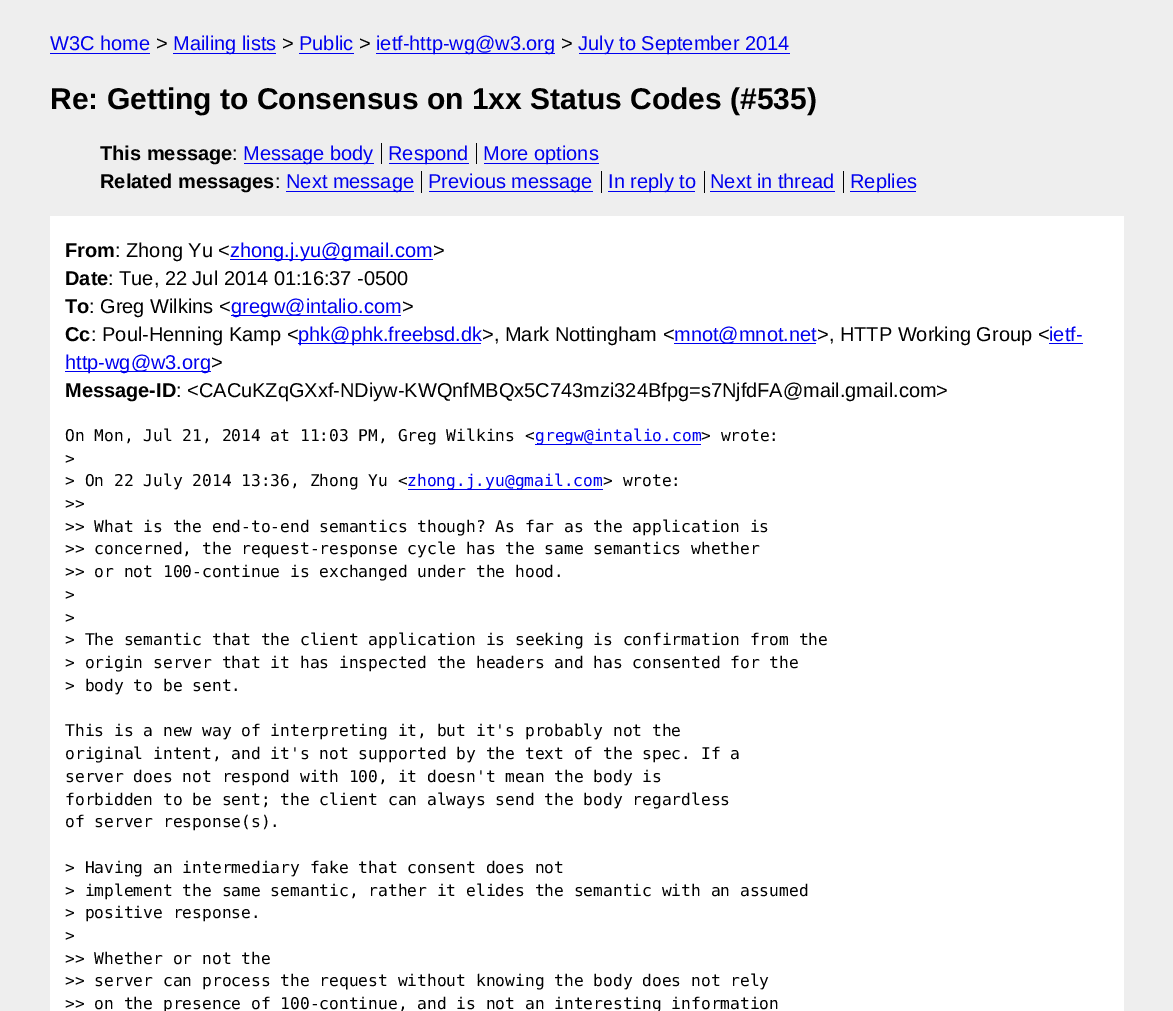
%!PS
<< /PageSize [1173 1011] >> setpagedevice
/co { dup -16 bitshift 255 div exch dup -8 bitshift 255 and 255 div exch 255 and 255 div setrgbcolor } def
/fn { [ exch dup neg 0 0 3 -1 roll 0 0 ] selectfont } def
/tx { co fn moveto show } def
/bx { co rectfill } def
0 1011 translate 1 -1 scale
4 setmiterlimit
0 0 1173 1011 16#EEEEEE bx
50 53 100 1 16#0000EE bx
173 53 103 1 16#0000EE bx
299 53 55 1 16#0000EE bx
376 53 179 1 16#0000EE bx
579 53 211 1 16#0000EE bx
381 143 1 21 16#000000 bx
244 163 130 1 16#0000EE bx
389 163 80 1 16#0000EE bx
476 143 1 21 16#000000 bx
484 163 115 1 16#0000EE bx
286 191 128 1 16#0000EE bx
421 171 1 22 16#000000 bx
429 191 164 1 16#0000EE bx
601 171 1 22 16#000000 bx
608 191 87 1 16#0000EE bx
704 171 1 22 16#000000 bx
710 191 125 1 16#0000EE bx
843 171 1 22 16#000000 bx
850 191 66 1 16#0000EE bx
50 216 1074 795 16#FFFFFF bx
230 259 203 1 16#0000EE bx
231 315 170 1 16#0000EE bx
298 343 183 1 16#0000EE bx
674 343 142 1 16#0000EE bx
1049 343 34 1 16#0000EE bx
65 371 146 1 16#0000EE bx
535 444 166 1 16#0000EE bx
408 489 195 1 16#0000EE bx
(W3C home) 50 50 /LiberationSans-Regular 20 16#0000EE tx
(>) 156 50 /LiberationSans-Regular 20 16#000000 tx
(Mailing lists) 173 50 /LiberationSans-Regular 20 16#0000EE tx
(>) 282 50 /LiberationSans-Regular 20 16#000000 tx
(Public) 299 50 /LiberationSans-Regular 20 16#0000EE tx
(>) 359 50 /LiberationSans-Regular 20 16#000000 tx
(ietf-http-wg@w3.org) 376 50 /LiberationSans-Regular 20 16#0000EE tx
(>) 561 50 /LiberationSans-Regular 20 16#000000 tx
(July to September 2014) 578 50 /LiberationSans-Regular 20 16#0000EE tx
(Re: Getting to Consensus on 1xx Status Codes \(#535\)) 50 109 /LiberationSans-Bold 30 16#000000 tx
(This message) 100 160 /LiberationSans-Bold 20 16#000000 tx
(:) 232 160 /LiberationSans-Regular 20 16#000000 tx
(Message body) 243 160 /LiberationSans-Regular 20 16#0000EE tx
(Respond) 388 160 /LiberationSans-Regular 20 16#0000EE tx
(More options) 483 160 /LiberationSans-Regular 20 16#0000EE tx
(Related messages) 100 188 /LiberationSans-Bold 20 16#000000 tx
(:) 275 188 /LiberationSans-Regular 20 16#000000 tx
(Next message) 286 188 /LiberationSans-Regular 20 16#0000EE tx
(Previous message) 428 188 /LiberationSans-Regular 20 16#0000EE tx
(In reply to) 608 188 /LiberationSans-Regular 20 16#0000EE tx
(Next in thread) 710 188 /LiberationSans-Regular 20 16#0000EE tx
(Replies) 850 188 /LiberationSans-Regular 20 16#0000EE tx
(From) 65 257 /LiberationSans-Bold 20 16#000000 tx
(: Zhong Yu <) 115 257 /LiberationSans-Regular 20 16#000000 tx
(zhong.j.yu@gmail.com) 230 257 /LiberationSans-Regular 20 16#0000EE tx
(>) 433 257 /LiberationSans-Regular 20 16#000000 tx
(Date) 65 285 /LiberationSans-Bold 20 16#000000 tx
(: Tue, 22 Jul 2014 01:16:37 -0500) 108 285 /LiberationSans-Regular 20 16#000000 tx
(To) 65 313 /LiberationSans-Bold 20 16#000000 tx
(: Greg Wilkins <) 89 313 /LiberationSans-Regular 20 16#000000 tx
(gregw@intalio.com) 231 313 /LiberationSans-Regular 20 16#0000EE tx
(>) 402 313 /LiberationSans-Regular 20 16#000000 tx
(Cc) 65 341 /LiberationSans-Bold 20 16#000000 tx
(: Poul-Henning Kamp <) 91 341 /LiberationSans-Regular 20 16#000000 tx
(phk@phk.freebsd.dk) 298 341 /LiberationSans-Regular 20 16#0000EE tx
(>, Mark Nottingham <) 482 341 /LiberationSans-Regular 20 16#000000 tx
(mnot@mnot.net) 674 341 /LiberationSans-Regular 20 16#0000EE tx
(>, HTTP Working Group <) 817 341 /LiberationSans-Regular 20 16#000000 tx
(ietf-) 1049 341 /LiberationSans-Regular 20 16#0000EE tx
(http-wg@w3.org) 65 369 /LiberationSans-Regular 20 16#0000EE tx
(>) 211 369 /LiberationSans-Regular 20 16#000000 tx
(Message-ID) 65 397 /LiberationSans-Bold 20 16#000000 tx
(: <CACuKZqGXxf-NDiyw-KWQnfMBQx5C743mzi324Bfpg=s7NjfdFA@mail.gmail.com>) 176 397 /LiberationSans-Regular 20 16#000000 tx
(On Mon, Jul 21, 2014 at 11:03 PM, Greg Wilkins <) 65 441 /DejaVuSansMono-Regular 16.25 16#000000 tx
(gregw@intalio.com) 535 441 /DejaVuSansMono-Regular 16.25 16#0000EE tx
(> wrote:) 701 441 /DejaVuSansMono-Regular 16.25 16#000000 tx
(>) 65 464 /DejaVuSansMono-Regular 16.25 16#000000 tx
(> On 22 July 2014 13:36, Zhong Yu <) 65 486 /DejaVuSansMono-Regular 16.25 16#000000 tx
(zhong.j.yu@gmail.com) 407 486 /DejaVuSansMono-Regular 16.25 16#0000EE tx
(> wrote:) 603 486 /DejaVuSansMono-Regular 16.25 16#000000 tx
(>>) 65 509 /DejaVuSansMono-Regular 16.25 16#000000 tx
(>> What is the end-to-end semantics though? As far as the application is) 65 532 /DejaVuSansMono-Regular 16.25 16#000000 tx
(>> concerned, the request-response cycle has the same semantics whether) 65 554 /DejaVuSansMono-Regular 16.25 16#000000 tx
(>> or not 100-continue is exchanged under the hood.) 65 577 /DejaVuSansMono-Regular 16.25 16#000000 tx
(>) 65 600 /DejaVuSansMono-Regular 16.25 16#000000 tx
(>) 65 623 /DejaVuSansMono-Regular 16.25 16#000000 tx
(> The semantic that the client application is seeking is confirmation from the) 65 645 /DejaVuSansMono-Regular 16.25 16#000000 tx
(> origin server that it has inspected the headers and has consented for the) 65 668 /DejaVuSansMono-Regular 16.25 16#000000 tx
(> body to be sent.) 65 691 /DejaVuSansMono-Regular 16.25 16#000000 tx
(This is a new way of interpreting it, but it's probably not the) 65 736 /DejaVuSansMono-Regular 16.25 16#000000 tx
(original intent, and it's not supported by the text of the spec. If a) 65 759 /DejaVuSansMono-Regular 16.25 16#000000 tx
(server does not respond with 100, it doesn't mean the body is) 65 782 /DejaVuSansMono-Regular 16.25 16#000000 tx
(forbidden to be sent; the client can always send the body regardless) 65 805 /DejaVuSansMono-Regular 16.25 16#000000 tx
(of server response\(s\).) 65 827 /DejaVuSansMono-Regular 16.25 16#000000 tx
(> Having an intermediary fake that consent does not) 65 873 /DejaVuSansMono-Regular 16.25 16#000000 tx
(> implement the same semantic, rather it elides the semantic with an assumed) 65 896 /DejaVuSansMono-Regular 16.25 16#000000 tx
(> positive response.) 65 918 /DejaVuSansMono-Regular 16.25 16#000000 tx
(>) 65 941 /DejaVuSansMono-Regular 16.25 16#000000 tx
(>> Whether or not the) 65 964 /DejaVuSansMono-Regular 16.25 16#000000 tx
(>> server can process the request without knowing the body does not rely) 65 986 /DejaVuSansMono-Regular 16.25 16#000000 tx
(>> on the presence of 100-continue, and is not an interesting information) 65 1009 /DejaVuSansMono-Regular 16.25 16#000000 tx
showpage
